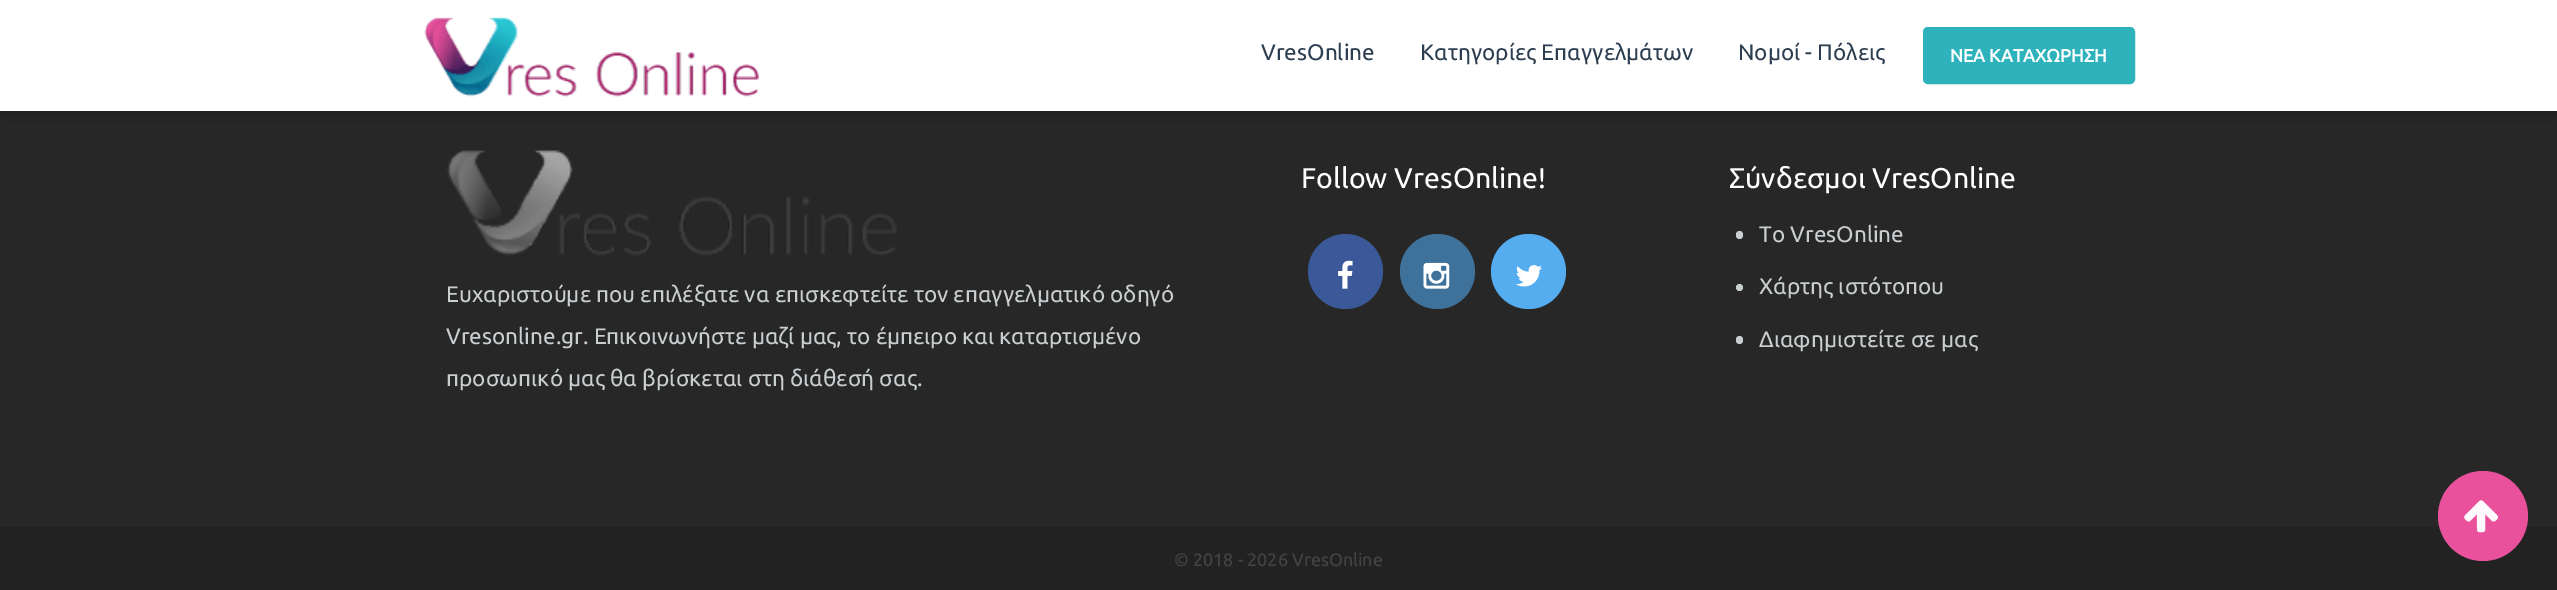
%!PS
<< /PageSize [2557 590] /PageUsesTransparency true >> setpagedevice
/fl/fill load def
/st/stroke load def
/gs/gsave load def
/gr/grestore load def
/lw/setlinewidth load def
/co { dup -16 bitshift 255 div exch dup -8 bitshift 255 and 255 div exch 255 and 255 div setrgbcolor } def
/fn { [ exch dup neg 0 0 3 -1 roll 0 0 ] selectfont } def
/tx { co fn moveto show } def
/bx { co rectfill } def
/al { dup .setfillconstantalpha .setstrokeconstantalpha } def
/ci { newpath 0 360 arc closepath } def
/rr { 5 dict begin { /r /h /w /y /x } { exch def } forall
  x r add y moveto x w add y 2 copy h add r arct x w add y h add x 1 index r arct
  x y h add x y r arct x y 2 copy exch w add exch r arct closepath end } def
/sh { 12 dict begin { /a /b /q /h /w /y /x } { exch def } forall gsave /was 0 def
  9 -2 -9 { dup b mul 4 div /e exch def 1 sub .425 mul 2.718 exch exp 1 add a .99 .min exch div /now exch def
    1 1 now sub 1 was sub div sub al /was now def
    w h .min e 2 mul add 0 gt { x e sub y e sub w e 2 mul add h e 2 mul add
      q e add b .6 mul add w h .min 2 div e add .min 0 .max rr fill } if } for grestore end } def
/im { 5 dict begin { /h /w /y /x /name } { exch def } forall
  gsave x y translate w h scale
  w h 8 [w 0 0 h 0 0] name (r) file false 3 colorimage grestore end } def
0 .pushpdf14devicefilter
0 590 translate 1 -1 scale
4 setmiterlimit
0 0 2557 590 16#272727 bx
16#000000 co
3 6 2552 105 0 7.5 .41 sh
0 0 2557 111 16#FFFFFF bx
(media/1.raw) 424 17 335 80 im
16#2EB3BC co
1924.5 28.5 209 54 3.5 rr gs fl gr
3 lw
st
(media/2.raw) 447 150 450 106 im
16#3B5998 co
1345.5 271.5 37.5 ci fl
(media/3.raw) 1338 260 15 29 im
16#3F729B co
1437.5 271.5 37.5 ci fl
(media/4.raw) 1423 262 27 27 im
16#55ACEE co
1528.5 271.5 37.5 ci fl
(media/5.raw) 1516 265 26 22 im
16#C9CED0 co
1736 231 7 8 3.5 rr fl
1739.5 287.5 3.5 ci fl
1736 336 7 8 3.5 rr fl
0 527 2557 63 16#222222 bx
0.96 al
16#F253A2 co
2483 516 45 ci fl
1 al
(media/6.raw) 2464 500 34 33 im
(VresOnline) 1261 60 /Ubuntu-Regular 22.5 16#2C3E50 tx
(Κατηγορίες Επαγγελμάτων) 1420 60 /Ubuntu-Regular 22.5 16#2C3E50 tx
(Νομοί - Πόλεις) 1738 60 /Ubuntu-Regular 22.5 16#2C3E50 tx
(ΝΕΑ ΚΑΤΑΧΩΡΗΣΗ) 1950 62 /Ubuntu-Bold 18 16#FFFFFF tx
(Ευχαριστούμε που επιλέξατε να επισκεφτείτε τον επαγγελματικό οδηγό) 446 302 /Ubuntu-Regular 22.5 16#C9CED0 tx
(Vresonline.gr. Επικοινωνήστε μαζί μας, το έμπειρο και καταρτισμένο) 446 344 /Ubuntu-Regular 22.5 16#C9CED0 tx
(προσωπικό μας θα βρίσκεται στη διάθεσή σας.) 446 386 /Ubuntu-Regular 22.5 16#C9CED0 tx
(Follow VresOnline!) 1301 188 /Ubuntu-Regular 28.5 16#FFFFFF tx
(Σύνδεσμοι VresOnline) 1729 188 /Ubuntu-Regular 28.5 16#FFFFFF tx
(Το VresOnline) 1759 242 /Ubuntu-Regular 22.5 16#C9CED0 tx
(Χάρτης ιστότοπου) 1759 294 /Ubuntu-Regular 22.5 16#C9CED0 tx
(Διαφημιστείτε σε μας) 1759 347 /Ubuntu-Regular 22.5 16#C9CED0 tx
(© 2018 - 2026 VresOnline) 1174 566 /Ubuntu-Regular 18 16#444444 tx
.poppdf14devicefilter showpage
